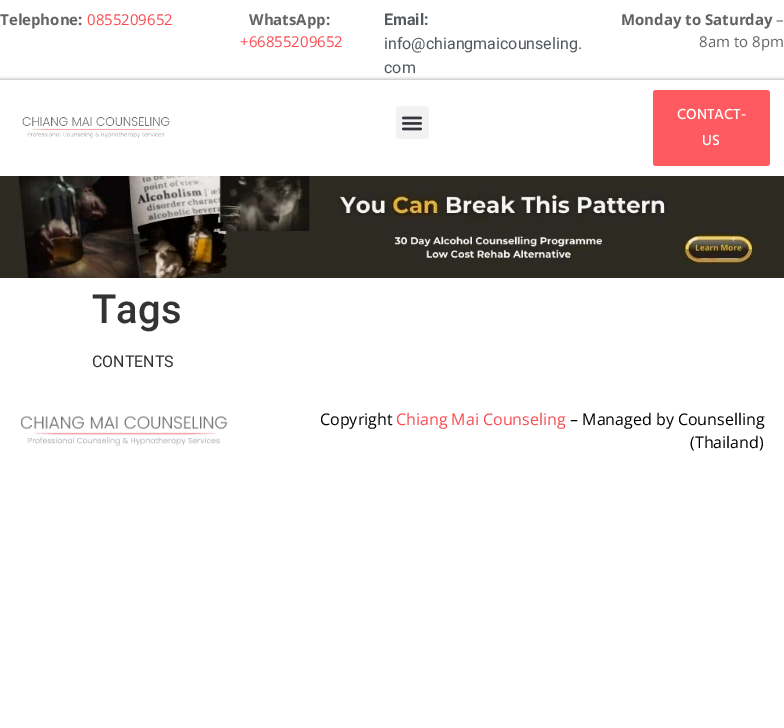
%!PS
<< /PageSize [784 728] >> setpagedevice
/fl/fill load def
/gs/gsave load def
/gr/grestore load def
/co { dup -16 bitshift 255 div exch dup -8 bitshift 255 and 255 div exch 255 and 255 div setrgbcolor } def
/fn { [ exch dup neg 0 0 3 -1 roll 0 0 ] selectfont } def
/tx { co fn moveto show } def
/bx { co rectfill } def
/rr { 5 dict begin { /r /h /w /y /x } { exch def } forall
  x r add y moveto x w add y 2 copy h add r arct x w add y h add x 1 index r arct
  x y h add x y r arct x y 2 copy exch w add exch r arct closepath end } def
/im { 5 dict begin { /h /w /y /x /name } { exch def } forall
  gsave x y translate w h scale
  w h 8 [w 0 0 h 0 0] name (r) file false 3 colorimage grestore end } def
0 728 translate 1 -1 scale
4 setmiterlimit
0 0 784 728 16#FFFFFF bx
gs 0 8 784 72 3 rr clip newpath
<< /ShadingType 2 /ColorSpace /DeviceRGB /Coords [392 8 392 80] /Extend [true true] /Function << /FunctionType 3 /Domain [0 1] /Functions [<< /FunctionType 2 /Domain [0 1] /C0 [1 1 1] /C1 [1 1 1] /N 1 >> << /FunctionType 2 /Domain [0 1] /C0 [1 1 1] /C1 [.827 .827 .827] /N 1 >>] /Bounds [.95] /Encode [0 1 0 1] >> >> shfill gr
(media/1.raw) 22 117 148 21 im
16#F2F2F2 co
396 106 33 33 3 rr fl
(media/2.raw) 401 116 22 15 im
16#FF5A5F co
653 90 117 76 3 rr fl
(media/3.raw) 0 176 784 102 im
(media/4.raw) 20 416 208 30 im
(Telephone:) 0 25 /OpenSans-Bold 15 16#636363 tx
(0855209652) 87 25 /OpenSans-Regular 15 16#FA4B51 tx
(WhatsApp:) 249 25 /OpenSans-Bold 15 16#636363 tx
(+66855209652) 240 47 /OpenSans-Regular 15 16#FA4B51 tx
(Email:) 384 25 /Roboto-Bold 16 16#54595F tx
(info@chiangmaicounseling.) 384 49 /Roboto-Regular 16 16#54595F tx
(com) 384 73 /Roboto-Regular 16 16#54595F tx
(Monday to Saturday) 621 25 /OpenSans-Bold 15 16#636363 tx
(–) 776 25 /OpenSans-Regular 15 16#636363 tx
(8am to 8pm) 699 47 /OpenSans-Regular 15 16#636363 tx
(CONTACT-) 677 119 /HindSiliguri-Medium 15 16#FFFFFF tx
(US) 702 145 /HindSiliguri-Medium 15 16#FFFFFF tx
(Tags) 92 323 /Roboto-Medium 40 16#333333 tx
(CONTENTS) 92 367 /Roboto-Regular 16 16#333333 tx
(Copyright) 320 425 /OpenSans-Regular 16 16#000000 tx
(Chiang Mai Counseling) 396 425 /OpenSans-Regular 16 16#FA4B51 tx
(– Managed by Counselling) 570 425 /OpenSans-Regular 16 16#000000 tx
(\(Thailand\)) 690 448 /OpenSans-Regular 16 16#000000 tx
showpage
